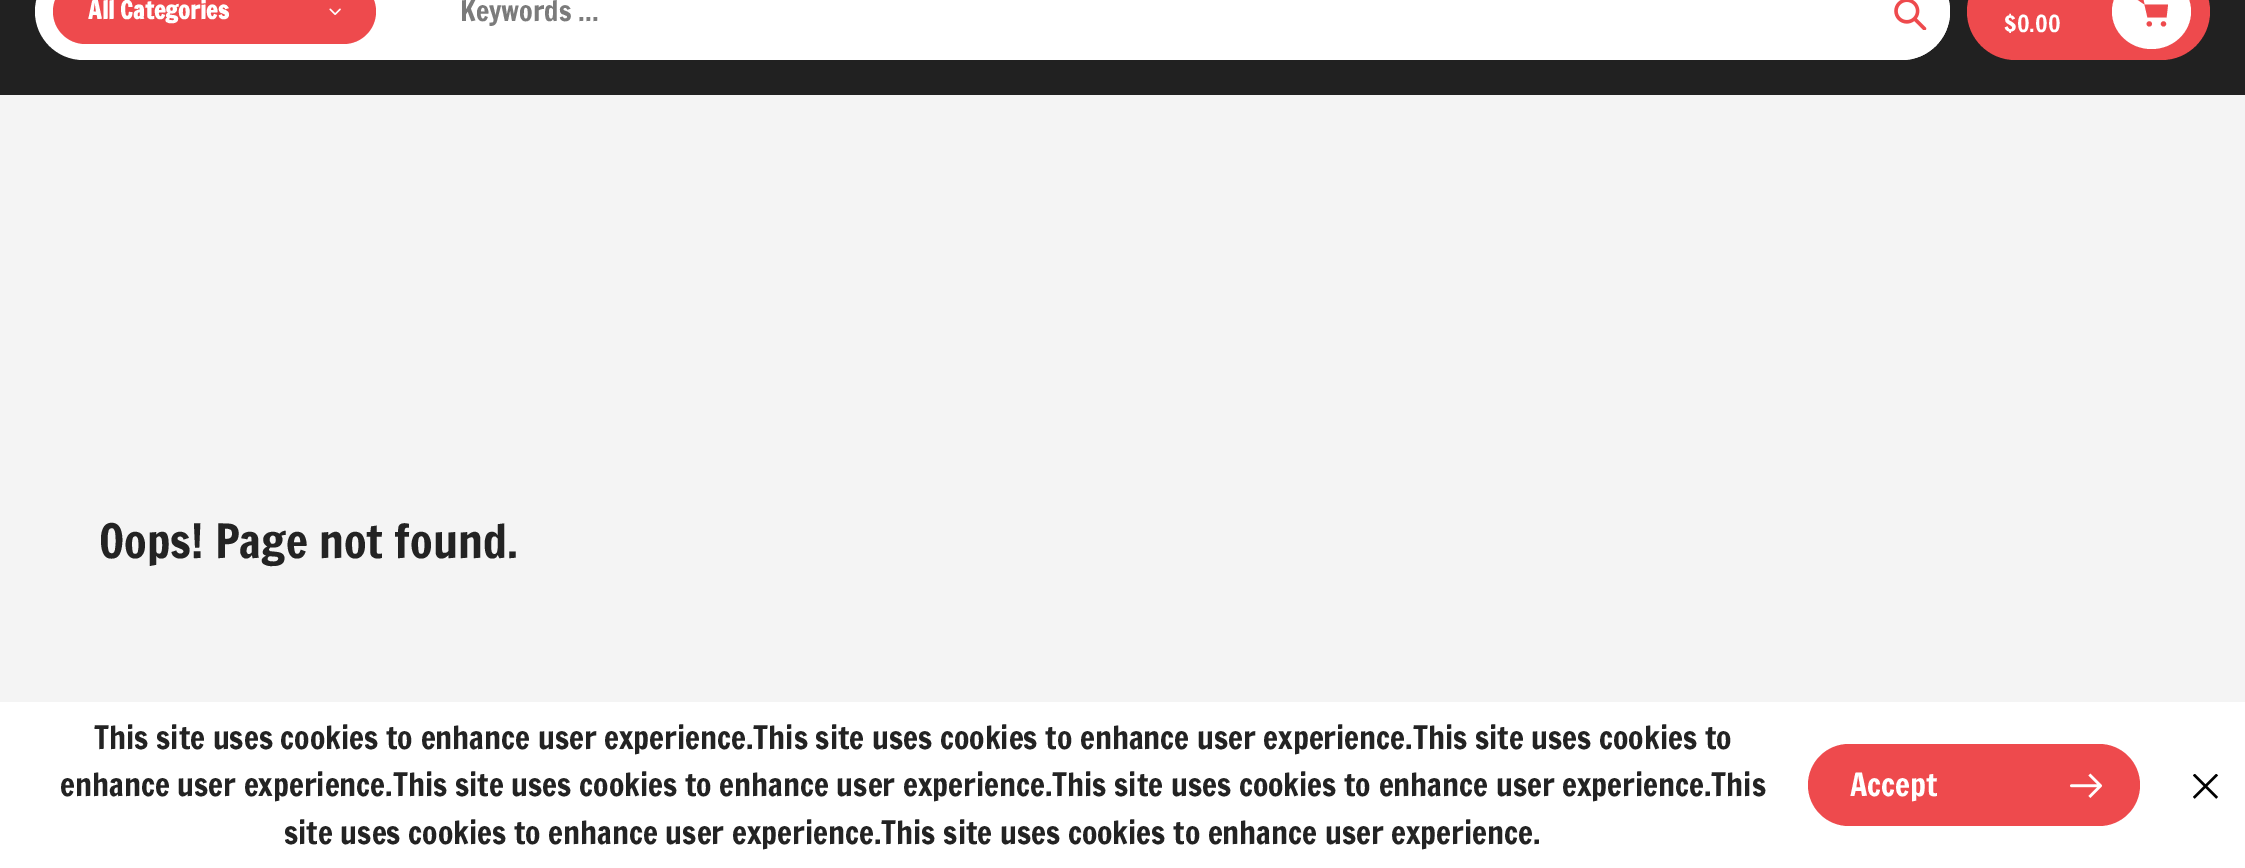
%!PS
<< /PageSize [2245 868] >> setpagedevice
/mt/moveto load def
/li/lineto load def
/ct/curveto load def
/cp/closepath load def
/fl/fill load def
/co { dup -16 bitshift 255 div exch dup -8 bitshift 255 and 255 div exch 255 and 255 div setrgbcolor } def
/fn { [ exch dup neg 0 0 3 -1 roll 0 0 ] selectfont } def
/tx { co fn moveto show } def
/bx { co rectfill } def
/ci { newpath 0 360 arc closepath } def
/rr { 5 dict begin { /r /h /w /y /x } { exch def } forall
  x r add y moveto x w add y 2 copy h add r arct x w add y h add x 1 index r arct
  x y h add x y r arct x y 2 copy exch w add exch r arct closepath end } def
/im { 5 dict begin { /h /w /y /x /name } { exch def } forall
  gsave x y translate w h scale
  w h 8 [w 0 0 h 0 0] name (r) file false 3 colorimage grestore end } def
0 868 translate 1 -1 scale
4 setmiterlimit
0 0 2245 868 16#F4F4F4 bx
0 0 2245 95 16#212121 bx
16#FFFFFF co
35 -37 1915 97 48.5 rr fl
16#EE4A4D co
53 -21 323 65 32.5 rr fl
(media/1.raw) 329 8 12 7 im
16#FFFFFF co
411 -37 1539 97 48.5 rr fl
(media/2.raw) 1894 0 33 30 im
16#EE4A4D co
1967 -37 243 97 48.5 rr fl
16#FFFFFF co
2151.5 -26 mt 2173.5 -26 2191 -9 2191 11.5 ct 2191 32 2173.5 49 2151.5 49 ct 2129.5 49 2112 32 2112 11.5 ct 2112 -9 2129.5 -26 2151.5 -26 ct cp fl
16#EE4A4D co
2149.3 23.9 2.6 ci fl
2163.5 23.9 2.6 ci fl
2144.5 4.5 mt 2168 4.5 li 2166.5 17.5 li 2147.5 17.5 li 2143 -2 li 2135 -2 li eofill
0 702 2245 166 16#FFFFFF bx
16#EE4A4D co
1808 744 332 82 41 rr fl
(media/3.raw) 2070 773 32 25 im
(media/4.raw) 2193 774 26 25 im
(All Categories) 88 19 /FrancoisOne-Bold 24.5 16#FFFFFF tx
(Keywords ...) 460 21 /FrancoisOne-Regular 28 16#7B7B7B tx
($0.00) 2004 32 /FrancoisOne-Regular 23 16#FFFFFF tx
(Oops! Page not found.) 99 558 /FrancoisOne-Regular 46.25 16#232323 tx
(This site uses cookies to enhance user experience.This site uses cookies to enhance user experience.This site uses cookies to) 94 749 /FrancoisOne-Regular 31.5 16#232323 tx
(enhance user experience.This site uses cookies to enhance user experience.This site uses cookies to enhance user experience.This) 60 796 /FrancoisOne-Regular 31.5 16#232323 tx
(site uses cookies to enhance user experience.This site uses cookies to enhance user experience.) 284 844 /FrancoisOne-Regular 31.5 16#232323 tx
(Accept) 1850 796 /FrancoisOne-Regular 31.5 16#FFFFFF tx
showpage
